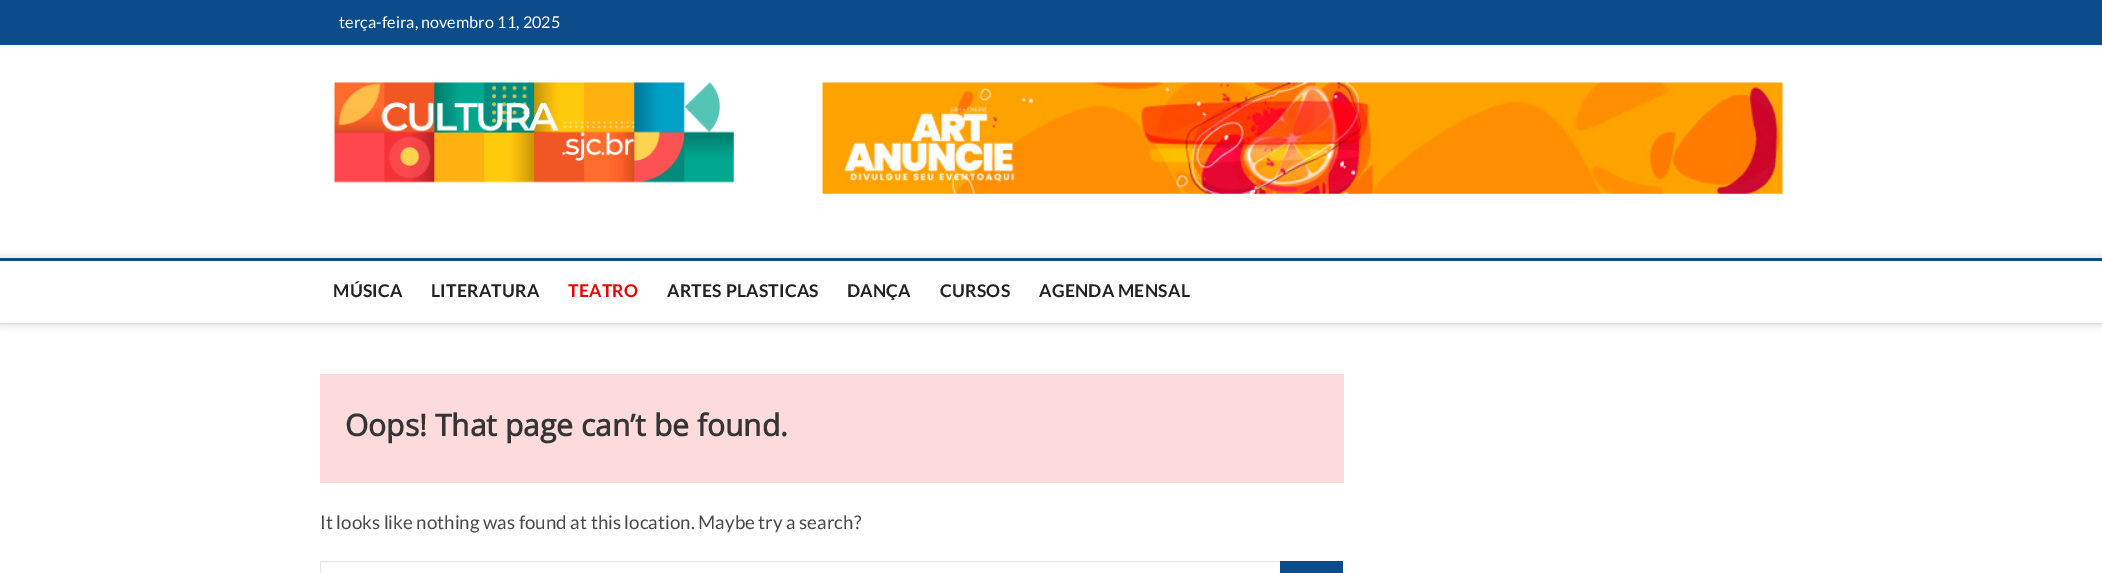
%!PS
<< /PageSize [2102 573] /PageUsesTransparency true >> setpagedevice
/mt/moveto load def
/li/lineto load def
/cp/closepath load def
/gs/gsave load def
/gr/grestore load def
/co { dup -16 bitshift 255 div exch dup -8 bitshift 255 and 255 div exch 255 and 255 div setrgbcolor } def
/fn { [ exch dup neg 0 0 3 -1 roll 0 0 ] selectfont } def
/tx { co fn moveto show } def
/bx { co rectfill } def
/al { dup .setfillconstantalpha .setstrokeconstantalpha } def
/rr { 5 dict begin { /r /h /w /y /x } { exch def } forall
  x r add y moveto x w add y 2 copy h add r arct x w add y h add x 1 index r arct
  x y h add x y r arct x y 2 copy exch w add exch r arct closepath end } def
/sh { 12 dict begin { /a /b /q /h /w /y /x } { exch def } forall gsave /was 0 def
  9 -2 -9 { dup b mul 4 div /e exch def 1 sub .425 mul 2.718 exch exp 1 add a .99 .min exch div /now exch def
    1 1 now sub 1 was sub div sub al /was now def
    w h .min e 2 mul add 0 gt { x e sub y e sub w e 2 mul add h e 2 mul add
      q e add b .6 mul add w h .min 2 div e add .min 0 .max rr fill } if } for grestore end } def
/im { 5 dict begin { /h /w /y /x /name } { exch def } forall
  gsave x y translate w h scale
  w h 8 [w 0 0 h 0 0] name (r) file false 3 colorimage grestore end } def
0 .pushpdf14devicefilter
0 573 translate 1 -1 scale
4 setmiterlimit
0 0 2102 573 16#FFFFFF bx
0 0 2102 45 16#0C4C8A bx
(media/1.raw) 334 82 400 101 im
(media/2.raw) 822 82 961 112 im
gs
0 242 mt 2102 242 li 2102 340 li 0 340 li cp 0 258 mt 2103 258 li 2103 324 li 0 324 li cp eoclip newpath
16#000000 co
0 258 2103 66 0 5 .15 sh
gr
0 258 2102 3 16#0C4C8A bx
0 323 2102 1 16#DDDDDD bx
320 374 1024 109 16#FDDBDD bx
16#E6E6E6 co
320.5 561.5 960 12 rectstroke
1280 561 63 12 16#0C4C8A bx
(terça-feira, novembro 11, 2025) 339 28 /Lato-Regular 16.25 16#FFFFFF tx
/Lato-Bold 17.5 fn
16#222222 co
333 297 mt .25 0 (MÚSICA) ashow
431 297 mt .25 0 (LITERATURA) ashow
16#E50700 co
568 297 mt .25 0 (TEATRO) ashow
16#222222 co
667 297 mt .25 0 (ARTES PLASTICAS) ashow
847 297 mt .25 0 (DANÇA) ashow
940 297 mt .25 0 (CURSOS) ashow
1039 297 mt .25 0 (AGENDA MENSAL) ashow
(Oops! That page can’t be found.) 345 436 /OpenSans-Bold 30 16#343434 tx
(It looks like nothing was found at this location. Maybe try a search?) 320 529 /Lato-Regular 18.75 16#484848 tx
.poppdf14devicefilter showpage
